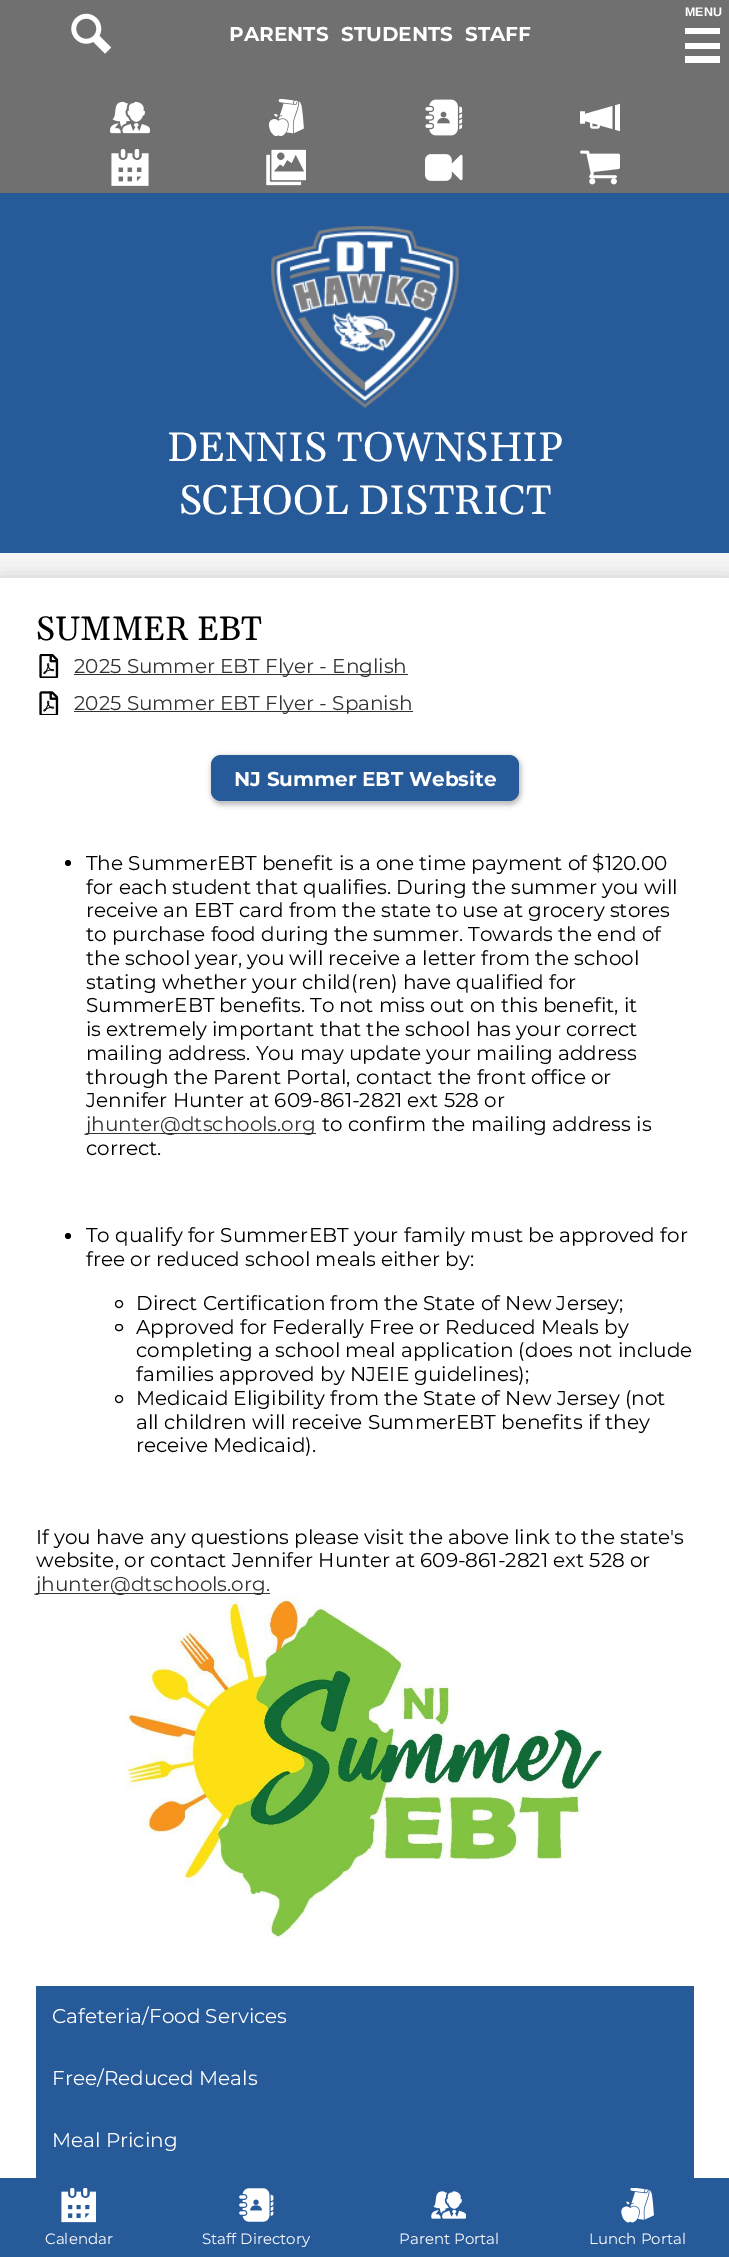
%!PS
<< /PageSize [729 2257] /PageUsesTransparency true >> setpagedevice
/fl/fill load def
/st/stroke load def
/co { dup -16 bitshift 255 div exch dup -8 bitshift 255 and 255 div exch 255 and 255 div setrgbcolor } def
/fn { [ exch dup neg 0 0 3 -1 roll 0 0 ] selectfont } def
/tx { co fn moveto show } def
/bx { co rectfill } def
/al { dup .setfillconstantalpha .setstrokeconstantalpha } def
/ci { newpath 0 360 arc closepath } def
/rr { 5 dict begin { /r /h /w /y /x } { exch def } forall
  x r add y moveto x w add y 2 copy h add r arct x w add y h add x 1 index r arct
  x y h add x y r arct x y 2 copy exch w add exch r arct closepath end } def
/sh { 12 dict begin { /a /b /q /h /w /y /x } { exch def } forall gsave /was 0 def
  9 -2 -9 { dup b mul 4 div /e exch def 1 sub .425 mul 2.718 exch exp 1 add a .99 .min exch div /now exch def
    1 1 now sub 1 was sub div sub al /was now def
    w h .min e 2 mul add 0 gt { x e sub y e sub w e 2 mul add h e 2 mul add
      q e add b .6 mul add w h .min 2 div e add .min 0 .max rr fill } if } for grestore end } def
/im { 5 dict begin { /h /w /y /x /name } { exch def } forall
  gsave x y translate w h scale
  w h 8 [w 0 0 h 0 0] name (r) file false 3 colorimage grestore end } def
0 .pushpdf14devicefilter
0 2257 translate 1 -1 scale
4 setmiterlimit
0 0 729 2257 16#F5F5F5 bx
16#000000 co
0 578 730 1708 0 9.5 .15 sh
0 193 729 360 16#275A99 bx
0 0 729 193 16#707070 bx
685 28 35 6 16#FFFFFF bx
685 43 35 6 16#FFFFFF bx
685 56 35 7 16#FFFFFF bx
(media/1.raw) 271 226 188 182 im
(media/2.raw) 71 13 41 41 im
(media/3.raw) 110 101 40 33 im
(media/4.raw) 268 99 36 37 im
(media/5.raw) 425 99 38 37 im
(media/6.raw) 580 103 40 29 im
(media/7.raw) 111 149 38 37 im
(media/8.raw) 266 149 40 37 im
(media/9.raw) 425 154 38 27 im
(media/10.raw) 580 150 40 35 im
0 578 729 1600 16#FFFFFF bx
(media/11.raw) 39 654 20 24 im
74 674 334 1 16#333333 bx
(media/12.raw) 39 691 20 24 im
74 711 339 1 16#333333 bx
16#000000 co
211 756 310 49 11 2.5 .25 sh
16#275A99 co
211 755 308 46 10 rr fl
16#000000 co
68 863 3 ci fl
86 1133 230 1 16#333333 bx
16#000000 co
68 1236 3 ci fl
119 1304 3.5 ci st
115.5 1324.5 7 6 3 rr st
119 1399 3.5 ci st
36 1593 234 1 16#333333 bx
(media/13.raw) 124 1596 482 342 im
36 1986 658 192 16#275A99 bx
0 2178 729 79 16#275A99 bx
(media/14.raw) 61 2188 35 35 im
(media/15.raw) 239 2188 35 34 im
(media/16.raw) 431 2191 35 28 im
(media/17.raw) 621 2188 33 35 im
(MENU) 685 16 /LiberationSans-Bold 12.5 16#FFFFFF tx
(DENNIS TOWNSHIP) 167 461 /Gelasio-Regular 41.25 16#FFFFFF tx
(SCHOOL DISTRICT) 179 514 /Gelasio-Regular 41.25 16#FFFFFF tx
(PARENTS) 229 41 /Montserrat-Bold 20 16#FFFFFF tx
(STUDENTS) 341 41 /Montserrat-Bold 20 16#FFFFFF tx
(STAFF) 465 41 /Montserrat-Bold 20 16#FFFFFF tx
(SUMMER EBT) 36 640 /Gelasio-Regular 33.75 16#000000 tx
(2025 Summer EBT Flyer - English) 74 673 /Montserrat-Regular 20 16#333333 tx
(2025 Summer EBT Flyer - Spanish) 74 710 /Montserrat-Regular 20 16#333333 tx
(NJ Summer EBT Website) 234 786 /Montserrat-Bold 20 16#FFFFFF tx
(The SummerEBT benefit is a one time payment of $120.00) 86 870 /Montserrat-Regular 20 16#000000 tx
(for each student that qualifies. During the summer you will) 86 894 /Montserrat-Regular 20 16#000000 tx
(receive an EBT card from the state to use at grocery stores) 86 917 /Montserrat-Regular 20 16#000000 tx
(to purchase food during the summer. Towards the end of) 86 941 /Montserrat-Regular 20 16#000000 tx
(the school year, you will receive a letter from the school) 86 965 /Montserrat-Regular 20 16#000000 tx
(stating whether your child\(ren\) have qualified for) 86 989 /Montserrat-Regular 20 16#000000 tx
(SummerEBT benefits. To not miss out on this benefit, it) 86 1012 /Montserrat-Regular 20 16#000000 tx
(is extremely important that the school has your correct) 86 1036 /Montserrat-Regular 20 16#000000 tx
(mailing address. You may update your mailing address) 86 1060 /Montserrat-Regular 20 16#000000 tx
(through the Parent Portal, contact the front office or) 86 1084 /Montserrat-Regular 20 16#000000 tx
(Jennifer Hunter at 609-861-2821 ext 528 or) 86 1107 /Montserrat-Regular 20 16#000000 tx
(jhunter@dtschools.org) 86 1131 /Montserrat-Regular 20 16#333333 tx
(to confirm the mailing address is) 322 1131 /Montserrat-Regular 20 16#000000 tx
(correct.) 86 1155 /Montserrat-Regular 20 16#000000 tx
(To qualify for SummerEBT your family must be approved for) 86 1242 /Montserrat-Regular 20 16#000000 tx
(free or reduced school meals either by:) 86 1266 /Montserrat-Regular 20 16#000000 tx
(Direct Certification from the State of New Jersey;) 136 1310 /Montserrat-Regular 20 16#000000 tx
(Approved for Federally Free or Reduced Meals by) 136 1334 /Montserrat-Regular 20 16#000000 tx
(completing a school meal application \(does not include) 136 1357 /Montserrat-Regular 20 16#000000 tx
(families approved by NJEIE guidelines\);) 136 1381 /Montserrat-Regular 20 16#000000 tx
(Medicaid Eligibility from the State of New Jersey \(not) 136 1405 /Montserrat-Regular 20 16#000000 tx
(all children will receive SummerEBT benefits if they) 136 1429 /Montserrat-Regular 20 16#000000 tx
(receive Medicaid\).) 136 1452 /Montserrat-Regular 20 16#000000 tx
(If you have any questions please visit the above link to the state's) 36 1544 /Montserrat-Regular 20 16#000000 tx
(website, or contact Jennifer Hunter at 609-861-2821 ext 528 or) 36 1567 /Montserrat-Regular 20 16#000000 tx
(jhunter@dtschools.org.) 36 1591 /Montserrat-Regular 20 16#333333 tx
(Cafeteria/Food Services) 52 2023 /Montserrat-Regular 20 16#FFFFFF tx
(Free/Reduced Meals) 52 2085 /Montserrat-Regular 20 16#FFFFFF tx
(Meal Pricing) 52 2147 /Montserrat-Regular 20 16#FFFFFF tx
(Calendar) 45 2244 /Montserrat-Regular 15 16#FFFFFF tx
(Staff Directory) 202 2244 /Montserrat-Regular 15 16#FFFFFF tx
(Parent Portal) 399 2244 /Montserrat-Regular 15 16#FFFFFF tx
(Lunch Portal) 589 2244 /Montserrat-Regular 15 16#FFFFFF tx
.poppdf14devicefilter showpage
